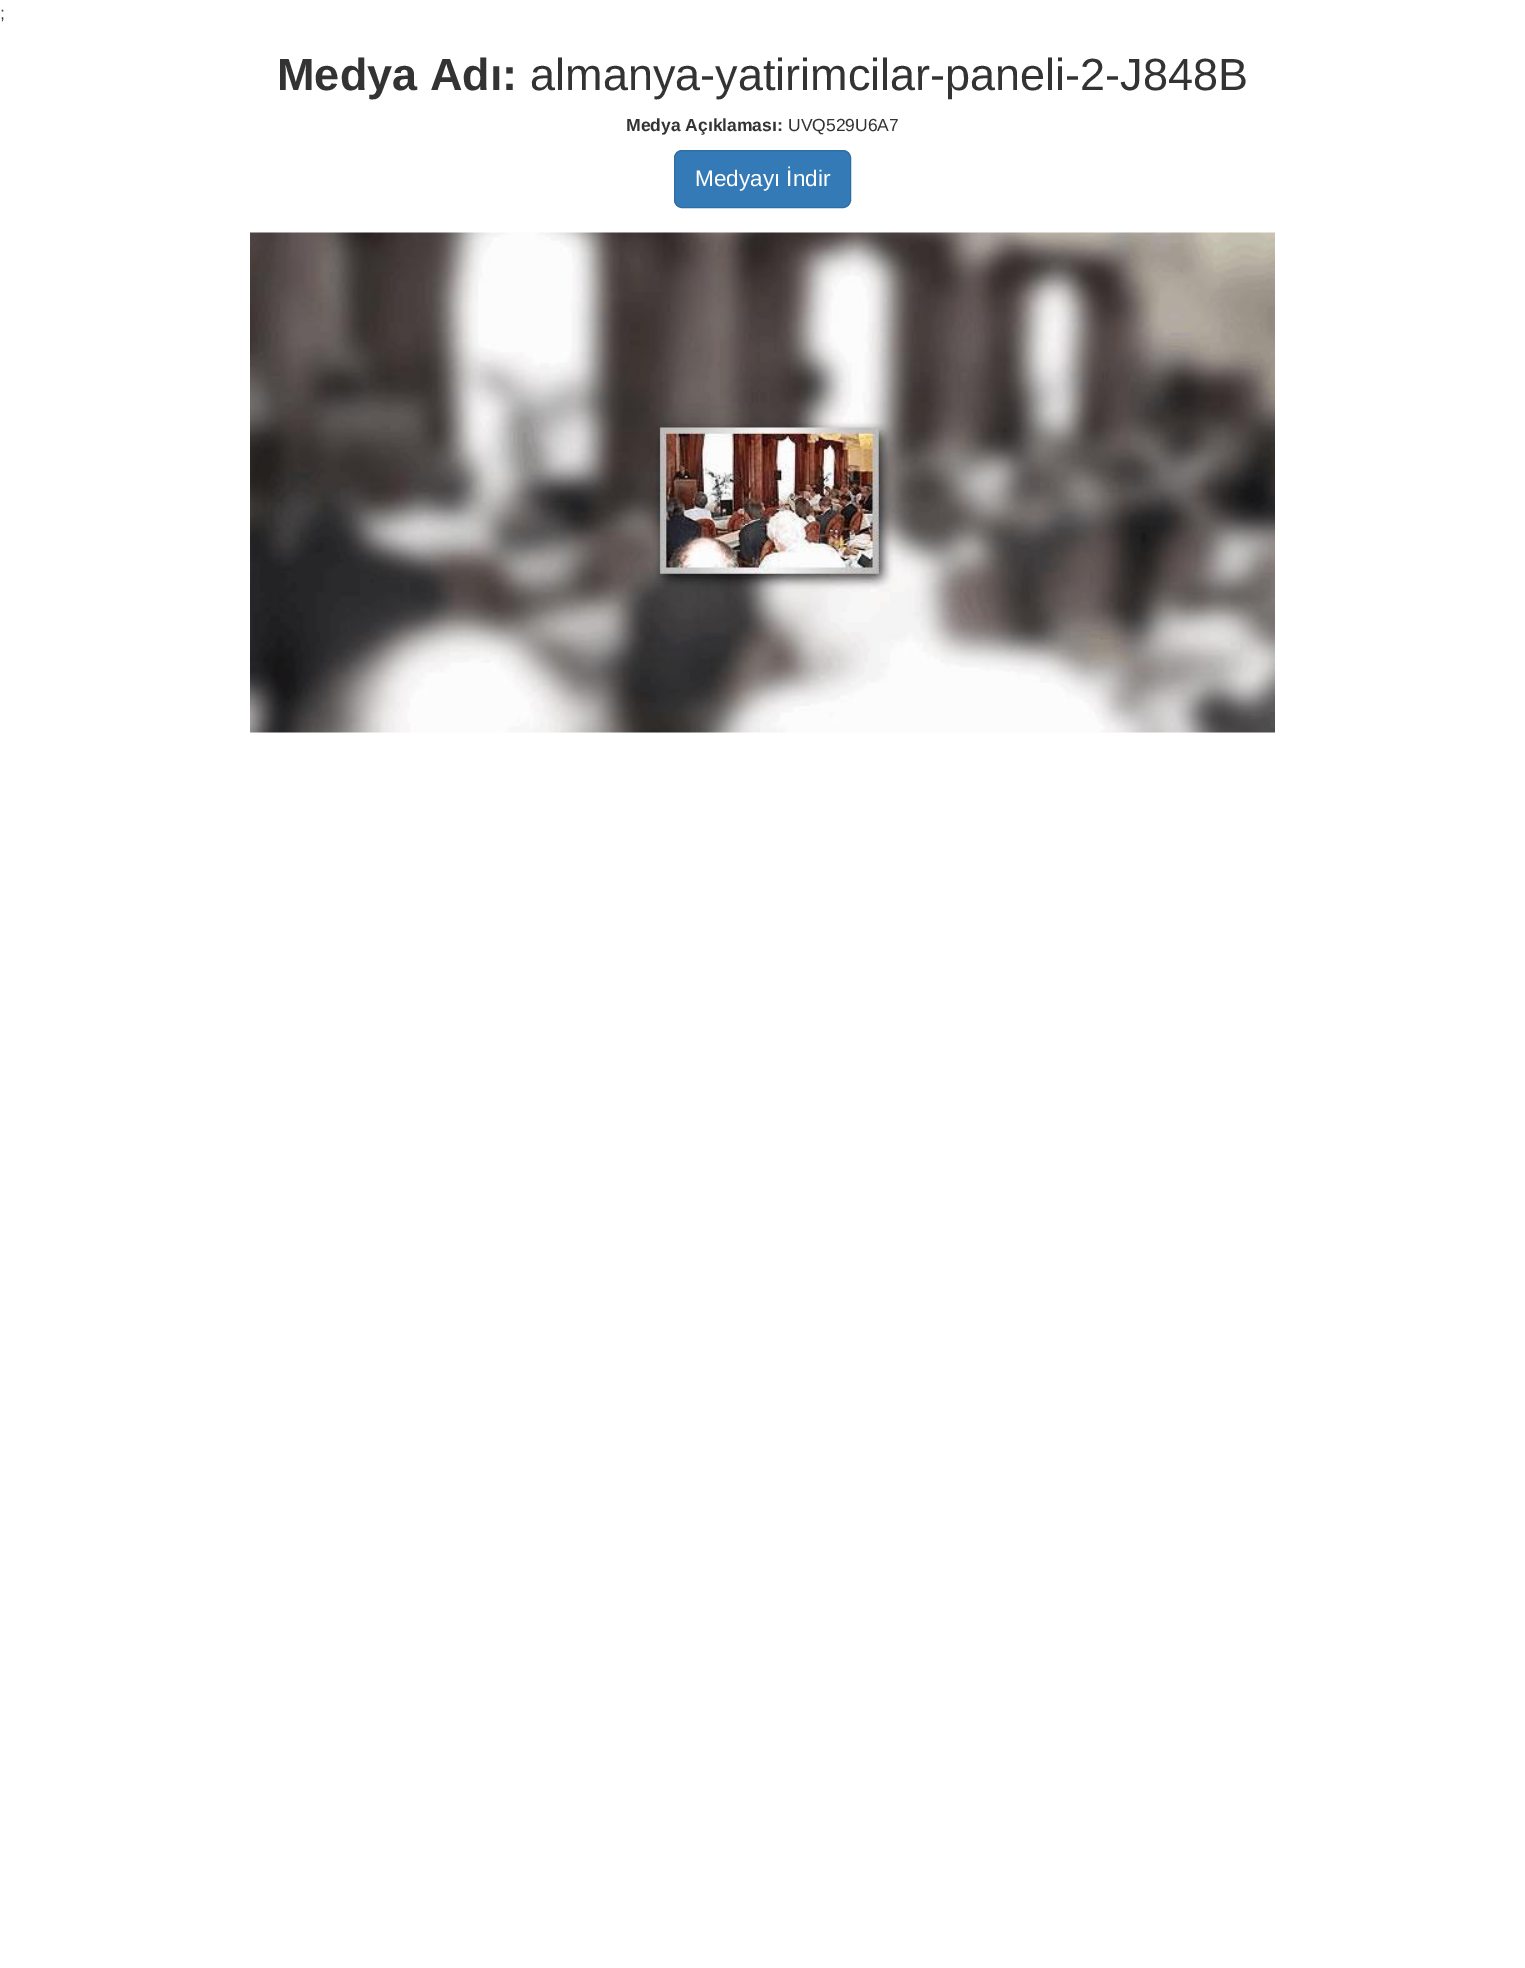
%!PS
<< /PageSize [1525 1968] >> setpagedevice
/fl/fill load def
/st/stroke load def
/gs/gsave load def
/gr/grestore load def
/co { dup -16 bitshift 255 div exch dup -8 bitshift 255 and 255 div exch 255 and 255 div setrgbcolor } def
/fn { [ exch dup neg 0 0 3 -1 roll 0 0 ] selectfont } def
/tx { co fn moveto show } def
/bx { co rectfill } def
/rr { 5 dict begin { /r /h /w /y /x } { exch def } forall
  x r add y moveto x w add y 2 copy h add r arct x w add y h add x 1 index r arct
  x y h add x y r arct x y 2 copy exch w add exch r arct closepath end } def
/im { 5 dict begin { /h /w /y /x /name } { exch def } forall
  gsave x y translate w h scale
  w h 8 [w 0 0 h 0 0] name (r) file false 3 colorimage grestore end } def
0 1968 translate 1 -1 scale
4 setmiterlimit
0 0 1525 1968 16#FFFFFF bx
16#337AB7 co
674.5 150.5 176 57 7.5 rr gs fl gr
16#2E6DA4 co
st
(media/1.raw) 250 232 1025 501 im
(;) 0 19 /LiberationSans-Regular 17.5 16#333333 tx
(Medya Adı:) 277 90 /LiberationSans-Bold 45 16#333333 tx
(almanya-yatirimcilar-paneli-2-J848B) 530 90 /LiberationSans-Regular 45 16#333333 tx
(Medya Açıklaması:) 626 131 /LiberationSans-Bold 17.5 16#333333 tx
(UVQ529U6A7) 788 131 /LiberationSans-Regular 17.5 16#333333 tx
(Medyayı İndir) 695 186 /LiberationSans-Regular 22.5 16#FFFFFF tx
showpage
